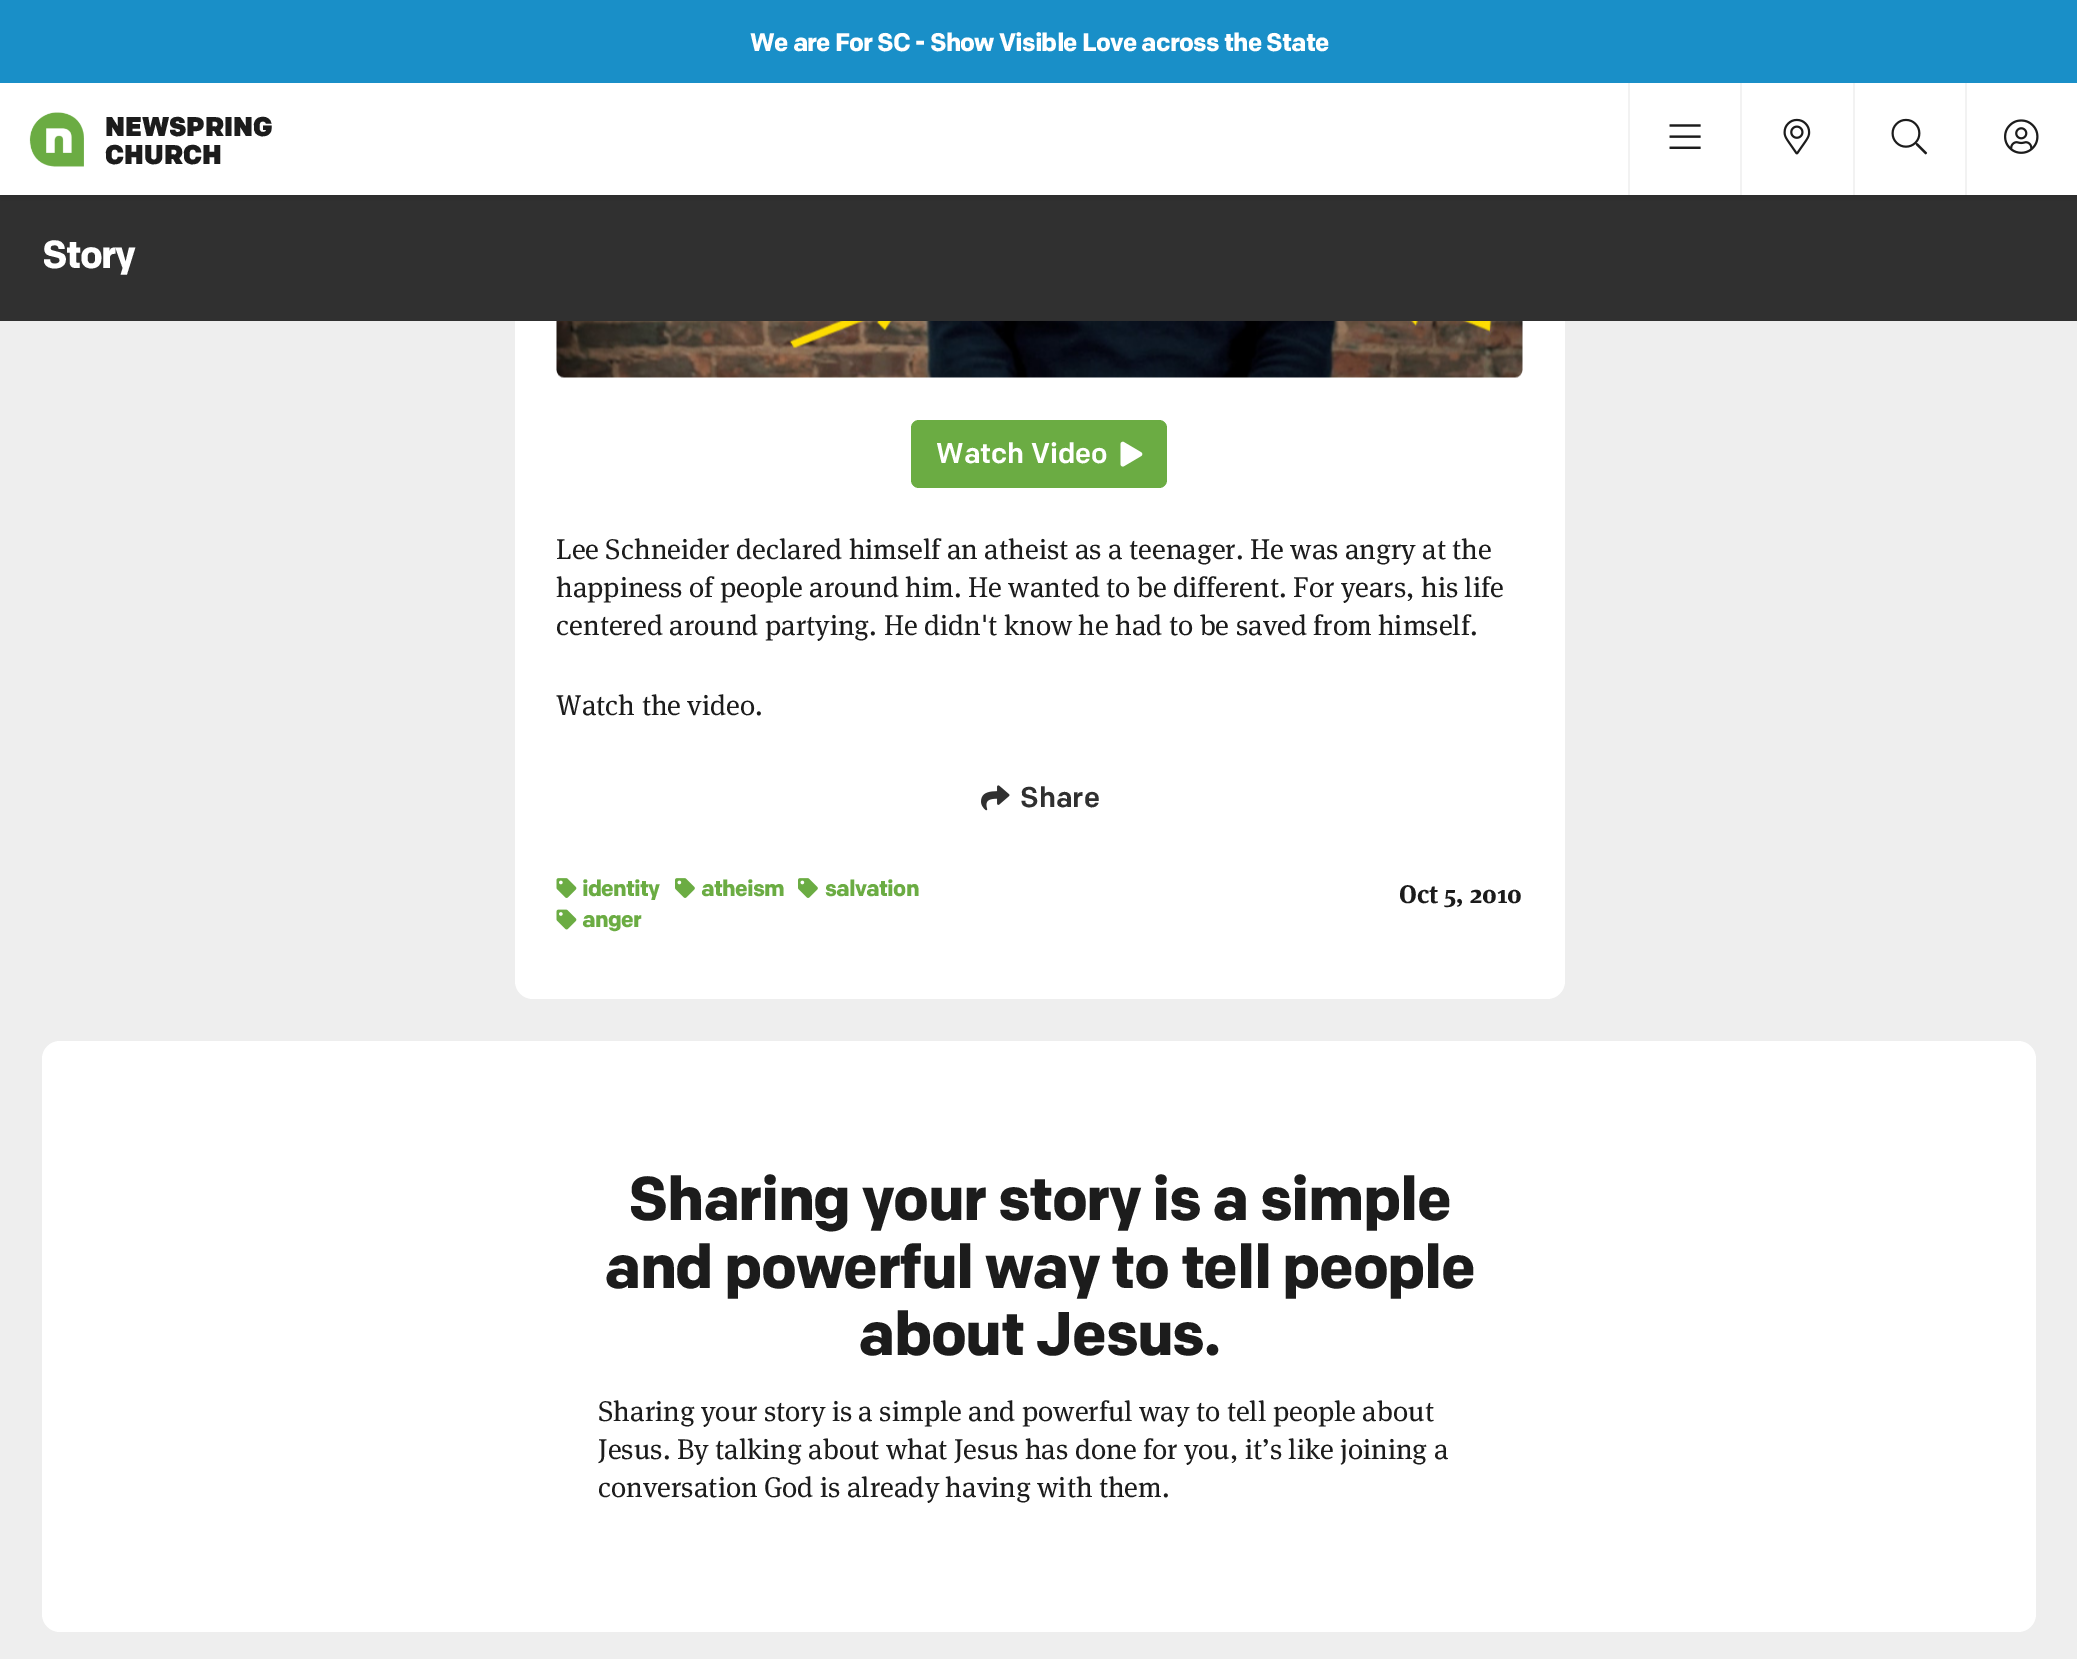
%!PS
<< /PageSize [2077 1659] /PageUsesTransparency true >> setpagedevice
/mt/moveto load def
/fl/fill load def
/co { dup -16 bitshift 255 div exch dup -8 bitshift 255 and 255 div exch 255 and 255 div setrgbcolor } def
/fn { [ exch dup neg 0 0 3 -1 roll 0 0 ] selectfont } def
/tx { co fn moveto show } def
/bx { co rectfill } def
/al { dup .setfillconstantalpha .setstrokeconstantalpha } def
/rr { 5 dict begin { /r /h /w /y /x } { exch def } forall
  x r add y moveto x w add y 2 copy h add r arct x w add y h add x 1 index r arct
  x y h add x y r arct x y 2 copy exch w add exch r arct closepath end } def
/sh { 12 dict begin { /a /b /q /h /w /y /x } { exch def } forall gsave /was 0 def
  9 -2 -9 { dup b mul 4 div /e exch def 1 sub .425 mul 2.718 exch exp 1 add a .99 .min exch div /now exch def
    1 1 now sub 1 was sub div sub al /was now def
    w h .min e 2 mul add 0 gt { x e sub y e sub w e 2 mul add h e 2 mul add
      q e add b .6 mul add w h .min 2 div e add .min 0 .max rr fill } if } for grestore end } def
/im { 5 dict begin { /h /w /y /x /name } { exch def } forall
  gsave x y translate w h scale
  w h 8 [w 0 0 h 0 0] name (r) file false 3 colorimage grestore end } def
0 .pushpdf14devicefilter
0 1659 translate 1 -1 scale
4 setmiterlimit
0 0 2077 1659 16#EEEEEE bx
16#FFFFFF co
515 -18 1050 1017 18 rr fl
0 195 2077 126 16#303030 bx
16#000000 co
0 83 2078 112 0 4.5 .2 sh
0 0 2077 83 16#198FC8 bx
0 83 2077 112 16#FFFFFF bx
(media/1.raw) 29 112 55 55 im
1628 83 2 112 16#F2F2F2 bx
(media/2.raw) 1669 124 32 25 im
1740 83 2 112 16#F2F2F2 bx
(media/3.raw) 1783 118 28 37 im
1853 83 2 112 16#F2F2F2 bx
(media/4.raw) 1891 118 37 37 im
1965 83 2 112 16#F2F2F2 bx
(media/5.raw) 2004 119 35 35 im
(media/6.raw) 556 321 967 57 im
16#6BAC43 co
911 420 256 68 8 rr fl
(media/7.raw) 1120 441 23 26 im
(media/8.raw) 981 785 29 26 im
(media/9.raw) 556 878 21 20 im
(media/10.raw) 675 878 20 20 im
(media/10.raw) 798 878 20 20 im
(media/11.raw) 556 909 21 21 im
16#FFFFFF co
42 1041 1994 591 18 rr fl
/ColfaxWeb-Bold 25.4 fn
750 51 mt -.75 0 (We are For SC - Show Visible Love across the State) ashow
(NEWSPRING) 105 136 /ColfaxWeb-Black 27 16#1C1C1C tx
(CHURCH) 105 164 /ColfaxWeb-Black 27 16#1C1C1C tx
/ColfaxWeb-Bold 39 fn
16#FFFFFF co
42 268 mt -1.5 0 (Story) ashow
(Watch Video) 936 463 /ColfaxWeb-Medium 28.5 16#FFFFFF tx
(Lee Schneider declared himself an atheist as a teenager. He was angry at the) 556 559 /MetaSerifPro-Regular 28.5 16#1C1C1C tx
(happiness of people around him. He wanted to be different. For years, his life) 556 597 /MetaSerifPro-Regular 28.5 16#1C1C1C tx
(centered around partying. He didn't know he had to be saved from himself.) 556 635 /MetaSerifPro-Regular 28.5 16#1C1C1C tx
(Watch the video.) 556 715 /MetaSerifPro-Regular 28.5 16#1C1C1C tx
(Share) 1020 807 /ColfaxWeb-Medium 28.5 16#303030 tx
/ColfaxWeb-Bold 22.5 fn
16#6BAC43 co
582 896 mt -.75 0 (identity) ashow
701 896 mt -.75 0 (atheism) ashow
825 896 mt -.75 0 (salvation) ashow
582 927 mt -.75 0 (anger) ashow
(Oct 5, 2010) 1399 903 /MetaSerifPro-Bold 25.4 16#1C1C1C tx
/ColfaxWeb-Bold 61.5 fn
628 1220 mt -1.5 0 (Sharing your story is a simple) ashow
604 1288 mt -1.5 0 (and powerful way to tell people) ashow
858 1355 mt -1.5 0 (about Jesus.) ashow
(Sharing your story is a simple and powerful way to tell people about) 598 1421 /MetaSerifPro-Regular 28.5 16#1C1C1C tx
(Jesus. By talking about what Jesus has done for you, it’s like joining a) 598 1459 /MetaSerifPro-Regular 28.5 16#1C1C1C tx
(conversation God is already having with them.) 598 1497 /MetaSerifPro-Regular 28.5 16#1C1C1C tx
.poppdf14devicefilter showpage
